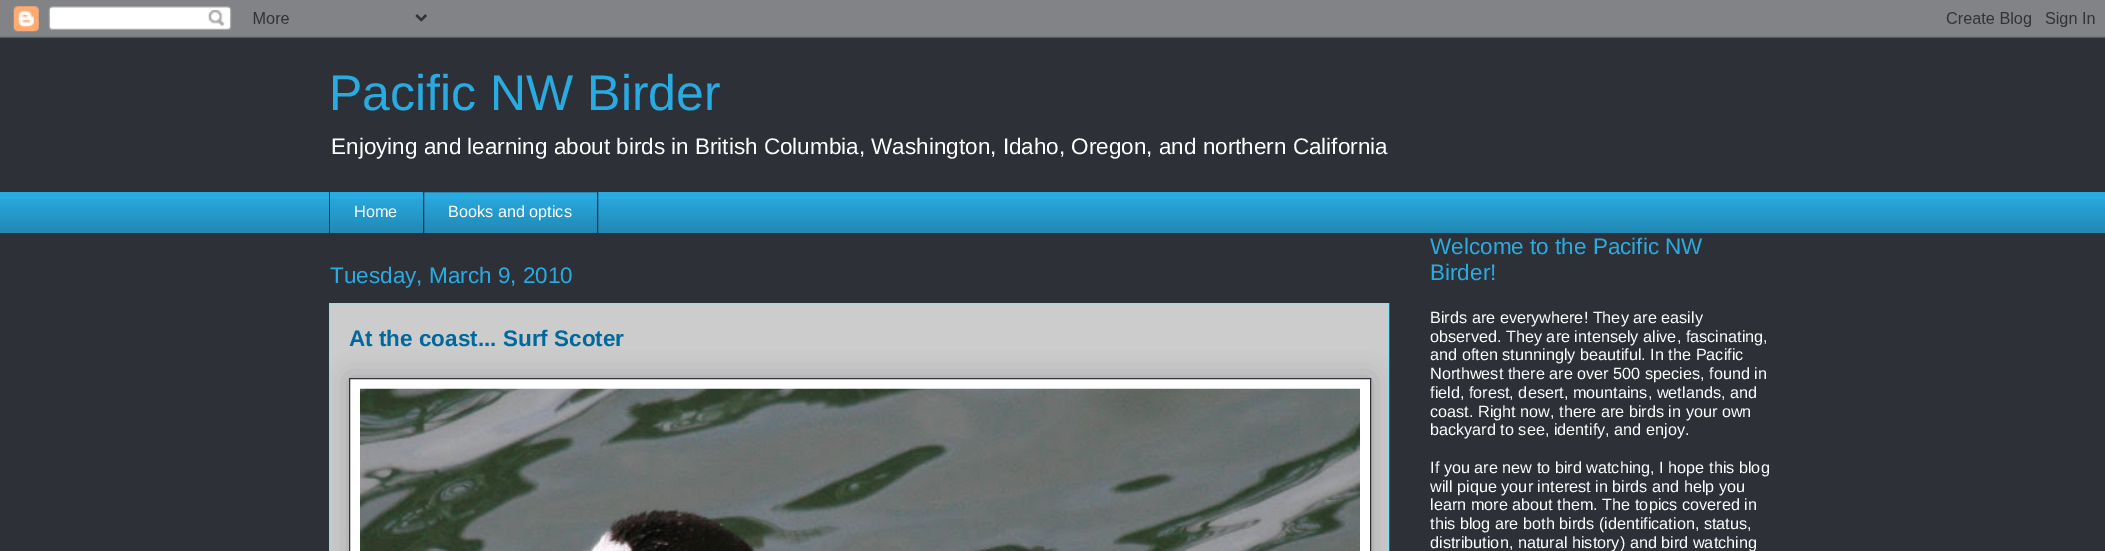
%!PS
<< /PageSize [2105 551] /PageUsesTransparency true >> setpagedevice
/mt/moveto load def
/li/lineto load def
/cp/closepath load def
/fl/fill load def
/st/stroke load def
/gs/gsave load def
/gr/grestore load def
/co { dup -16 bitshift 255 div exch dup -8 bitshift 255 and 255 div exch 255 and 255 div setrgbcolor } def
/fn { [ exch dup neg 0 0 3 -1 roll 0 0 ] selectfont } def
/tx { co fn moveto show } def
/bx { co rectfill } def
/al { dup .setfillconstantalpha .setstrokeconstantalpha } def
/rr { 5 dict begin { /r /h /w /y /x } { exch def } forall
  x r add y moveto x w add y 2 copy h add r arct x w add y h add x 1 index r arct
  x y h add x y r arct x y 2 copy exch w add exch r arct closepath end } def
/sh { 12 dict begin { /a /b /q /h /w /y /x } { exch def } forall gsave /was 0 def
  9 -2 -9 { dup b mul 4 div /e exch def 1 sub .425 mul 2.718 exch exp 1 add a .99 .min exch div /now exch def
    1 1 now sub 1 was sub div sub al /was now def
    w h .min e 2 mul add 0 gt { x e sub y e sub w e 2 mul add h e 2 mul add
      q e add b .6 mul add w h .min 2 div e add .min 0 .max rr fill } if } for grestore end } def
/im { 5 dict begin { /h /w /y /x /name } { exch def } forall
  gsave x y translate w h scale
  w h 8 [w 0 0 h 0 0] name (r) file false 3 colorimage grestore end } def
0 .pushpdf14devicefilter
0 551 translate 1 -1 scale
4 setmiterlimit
0 0 2105 551 16#2D3037 bx
(media/1.raw) 0 0 2105 38 im
0 192 2105 41 16#29AAE1 bx
(media/2.raw) 0 199 2105 34 im
329 191 1 43 16#2D3037 bx
423.5 191.5 174 42 rectstroke
16#CCCCCC co
329.5 303.5 mt 1388.5 303.5 li 1388.5 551.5 li 329.5 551.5 li cp gs fl gr
16#8CE1F5 co
st
16#000000 co
349 378 1022 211 0 12.5 .2 sh
16#FFFFFF co
349.5 378.5 mt 1370.5 378.5 li 1370.5 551.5 li 349.5 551.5 li cp gs fl gr
16#2D3037 co
st
(media/3.raw) 360 388 1000 163 im
(Pacific NW Birder) 329 110 /LiberationSans-Regular 50 16#29AAE1 tx
(Enjoying and learning about birds in British Columbia, Washington, Idaho, Oregon, and northern California) 331 154 /LiberationSans-Regular 22.5 16#FFFFFF tx
(Home) 354 217 /LiberationSans-Regular 16.25 16#FFFFFF tx
(Books and optics) 448 217 /LiberationSans-Regular 16.25 16#FFFFFF tx
(Tuesday, March 9, 2010) 330 283 /LiberationSans-Regular 22.5 16#29AAE1 tx
(At the coast... Surf Scoter) 349 346 /LiberationSans-Bold 22.5 16#01689C tx
(Welcome to the Pacific NW) 1430 254 /LiberationSans-Regular 22.5 16#29AAE1 tx
(Birder!) 1430 280 /LiberationSans-Regular 22.5 16#29AAE1 tx
(Birds are everywhere! They are easily) 1430 323 /LiberationSans-Regular 16.25 16#FFFFFF tx
(observed. They are intensely alive, fascinating,) 1430 342 /LiberationSans-Regular 16.25 16#FFFFFF tx
(and often stunningly beautiful. In the Pacific) 1430 360 /LiberationSans-Regular 16.25 16#FFFFFF tx
(Northwest there are over 500 species, found in) 1430 379 /LiberationSans-Regular 16.25 16#FFFFFF tx
(field, forest, desert, mountains, wetlands, and) 1430 398 /LiberationSans-Regular 16.25 16#FFFFFF tx
(coast. Right now, there are birds in your own) 1430 417 /LiberationSans-Regular 16.25 16#FFFFFF tx
(backyard to see, identify, and enjoy.) 1430 435 /LiberationSans-Regular 16.25 16#FFFFFF tx
(If you are new to bird watching, I hope this blog) 1430 473 /LiberationSans-Regular 16.25 16#FFFFFF tx
(will pique your interest in birds and help you) 1430 492 /LiberationSans-Regular 16.25 16#FFFFFF tx
(learn more about them. The topics covered in) 1430 510 /LiberationSans-Regular 16.25 16#FFFFFF tx
(this blog are both birds \(identification, status,) 1430 529 /LiberationSans-Regular 16.25 16#FFFFFF tx
(distribution, natural history\) and bird watching) 1430 548 /LiberationSans-Regular 16.25 16#FFFFFF tx
.poppdf14devicefilter showpage
